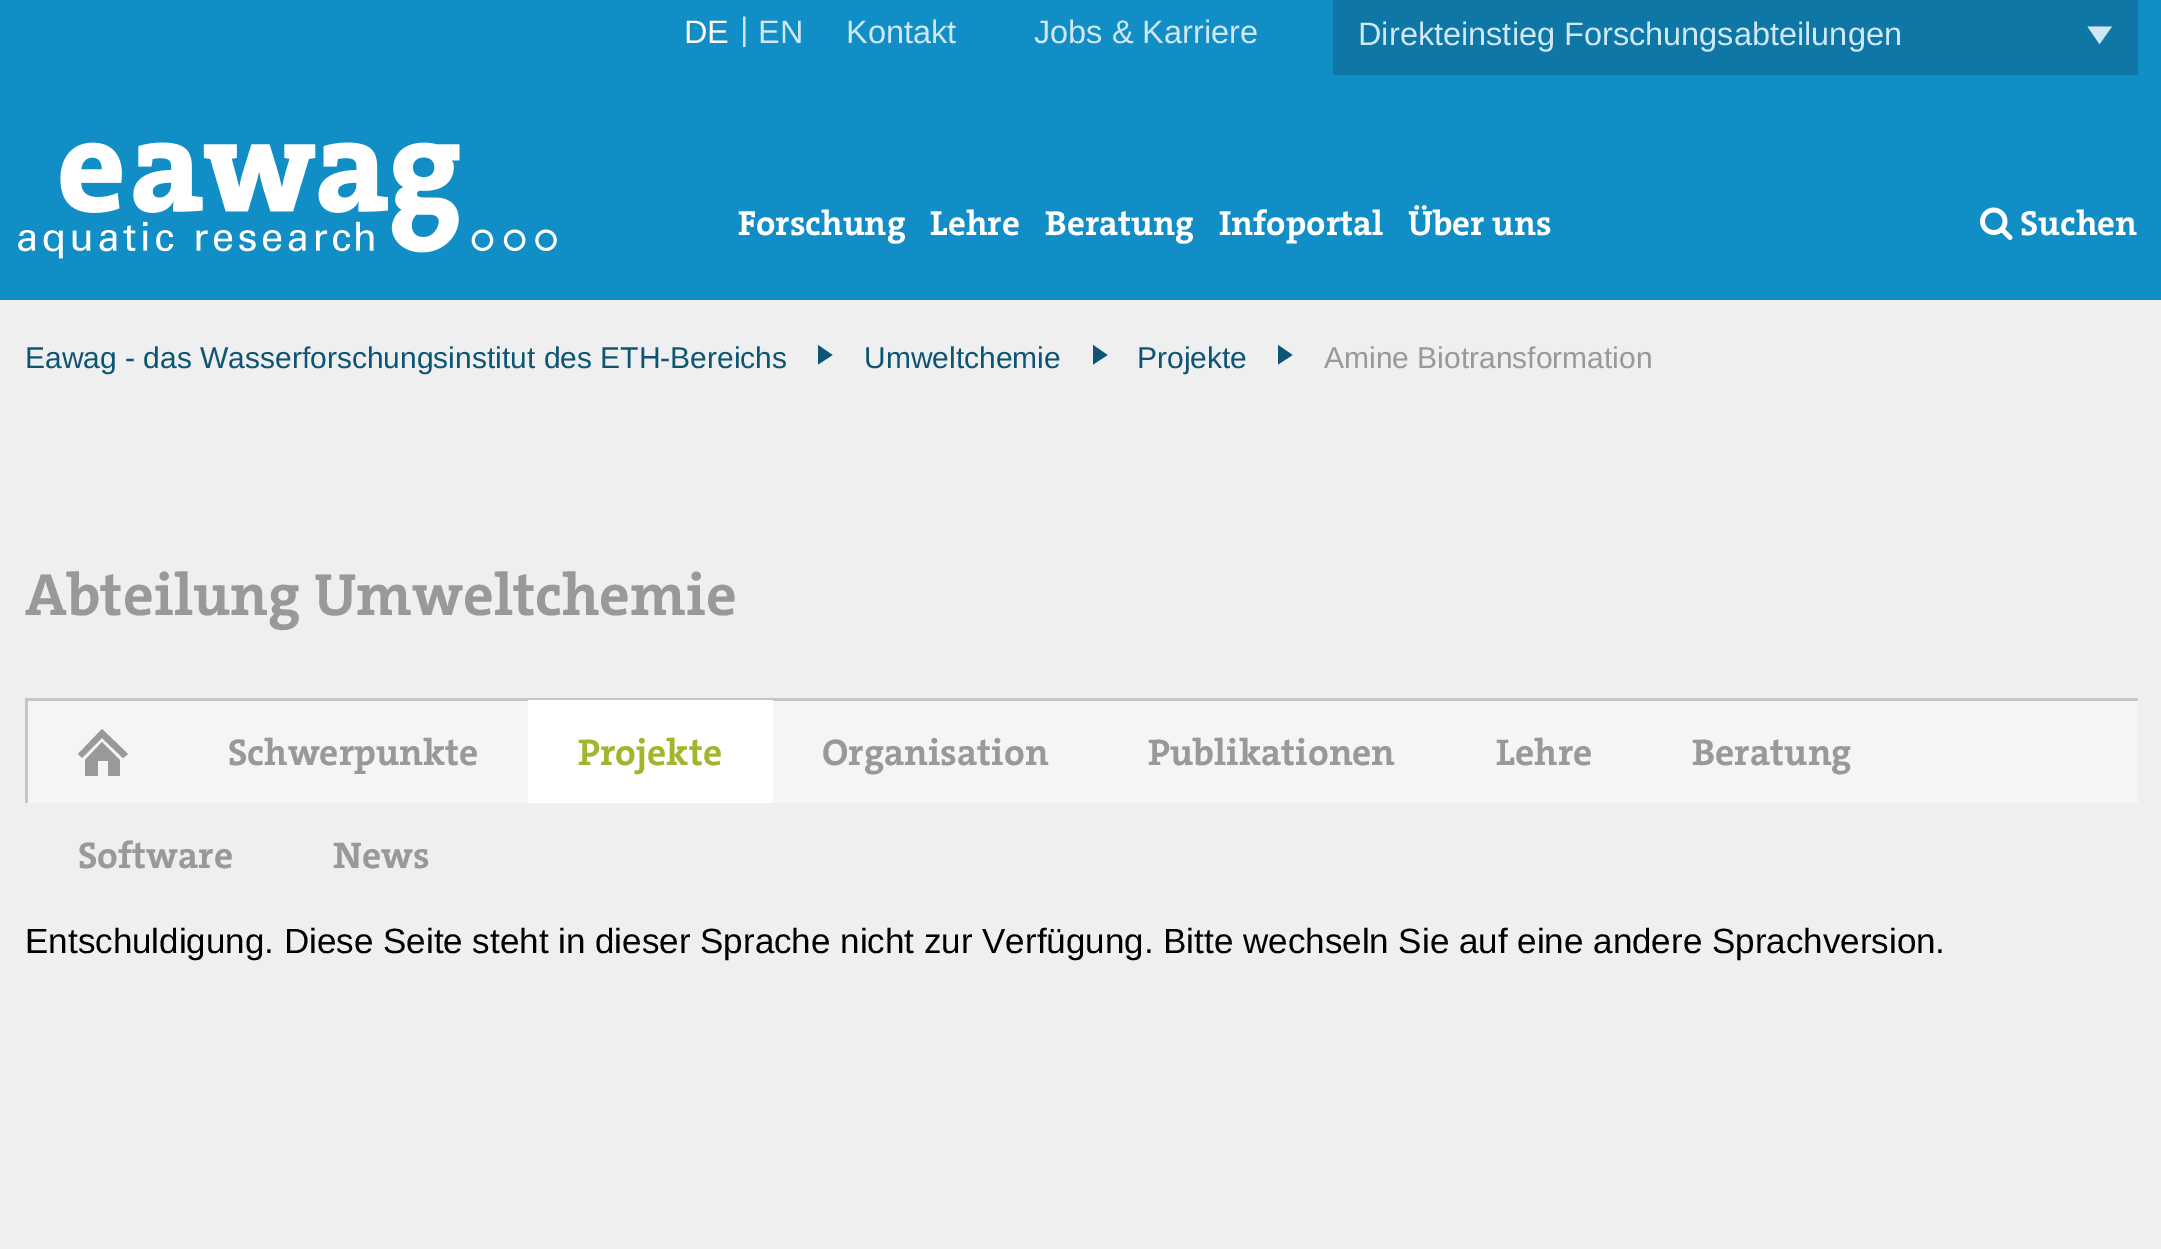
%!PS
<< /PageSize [2161 1249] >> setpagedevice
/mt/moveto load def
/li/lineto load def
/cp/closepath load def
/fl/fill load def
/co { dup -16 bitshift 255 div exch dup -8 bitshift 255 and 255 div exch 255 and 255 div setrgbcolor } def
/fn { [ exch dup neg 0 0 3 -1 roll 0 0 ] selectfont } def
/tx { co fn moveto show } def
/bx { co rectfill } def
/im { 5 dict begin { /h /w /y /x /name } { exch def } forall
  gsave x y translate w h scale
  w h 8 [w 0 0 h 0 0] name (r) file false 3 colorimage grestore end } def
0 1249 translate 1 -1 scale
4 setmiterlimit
0 0 2161 1249 16#EFEFEF bx
0 0 2161 300 16#118EC6 bx
1333 0 805 75 16#0E77A5 bx
16#CFE8F4 co
2112 26.5 mt 2099.5 44 li 2087.5 26.5 li cp fl
(media/1.raw) 18 142 539 117 im
(media/2.raw) 1980 207 33 33 im
16#0C5574 co
818 364.5 mt 832.5 355 li 818 345 li cp fl
1093 364.5 mt 1107.5 355 li 1093 345 li cp fl
1278 364.5 mt 1292.5 355 li 1278 345 li cp fl
28 701 2110 102 16#F5F5F5 bx
25 698 2113 3 16#C8C6BF bx
25 698 3 105 16#C8C6BF bx
16#999999 co
102 729 mt 128 754 li 123 758 li 102 738 li 82 758 li 78 754 li cp 85 760 mt 102 742 li 120 760 li 120 776 li 108 776 li 108 761 li 98 761 li 98 776 li 85 776 li cp fl
528 700 245 103 16#FFFFFF bx
(DE) 684 43 /LiberationSans-Regular 32.5 16#FFFFFF tx
(|) 740 40 /LiberationSans-Regular 32.5 16#CFE8F4 tx
(EN) 758 43 /LiberationSans-Regular 32.5 16#CFE8F4 tx
(Kontakt) 846 43 /LiberationSans-Regular 32.5 16#CFE8F4 tx
(Jobs & Karriere) 1034 43 /LiberationSans-Regular 32.5 16#CFE8F4 tx
(Direkteinstieg Forschungsabteilungen) 1358 45 /LiberationSans-Regular 32.5 16#CFE8F4 tx
(Forschung) 738 235 /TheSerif-Bold 35 16#FFFFFF tx
(Lehre) 930 235 /TheSerif-Bold 35 16#FFFFFF tx
(Beratung) 1045 235 /TheSerif-Bold 35 16#FFFFFF tx
(Infoportal) 1219 235 /TheSerif-Bold 35 16#FFFFFF tx
(Über uns) 1408 235 /TheSerif-Bold 35 16#FFFFFF tx
(Suchen) 2020 235 /TheSerif-Bold 35 16#FFFFFF tx
(Eawag - das Wasserforschungsinstitut des ETH-Bereichs) 25 368 /LiberationSans-Regular 30 16#0C5574 tx
(Umweltchemie) 864 368 /LiberationSans-Regular 30 16#0C5574 tx
(Projekte) 1137 368 /LiberationSans-Regular 30 16#0C5574 tx
(Amine Biotransformation) 1324 368 /LiberationSans-Regular 30 16#999999 tx
(Abteilung Umweltchemie) 25 615 /TheSerif-Bold 60 16#999999 tx
(Schwerpunkte) 228 765 /TheSerif-Bold 37.5 16#999999 tx
(Projekte) 578 765 /TheSerif-Bold 37.5 16#A3B52C tx
(Organisation) 822 765 /TheSerif-Bold 37.5 16#999999 tx
(Publikationen) 1148 765 /TheSerif-Bold 37.5 16#999999 tx
(Lehre) 1496 765 /TheSerif-Bold 37.5 16#999999 tx
(Beratung) 1692 765 /TheSerif-Bold 37.5 16#999999 tx
(Software) 78 868 /TheSerif-Bold 37.5 16#999999 tx
(News) 333 868 /TheSerif-Bold 37.5 16#999999 tx
(Entschuldigung. Diese Seite steht in dieser Sprache nicht zur Verfügung. Bitte wechseln Sie auf eine andere Sprachversion.) 25 953 /LiberationSans-Regular 35 16#000000 tx
showpage
